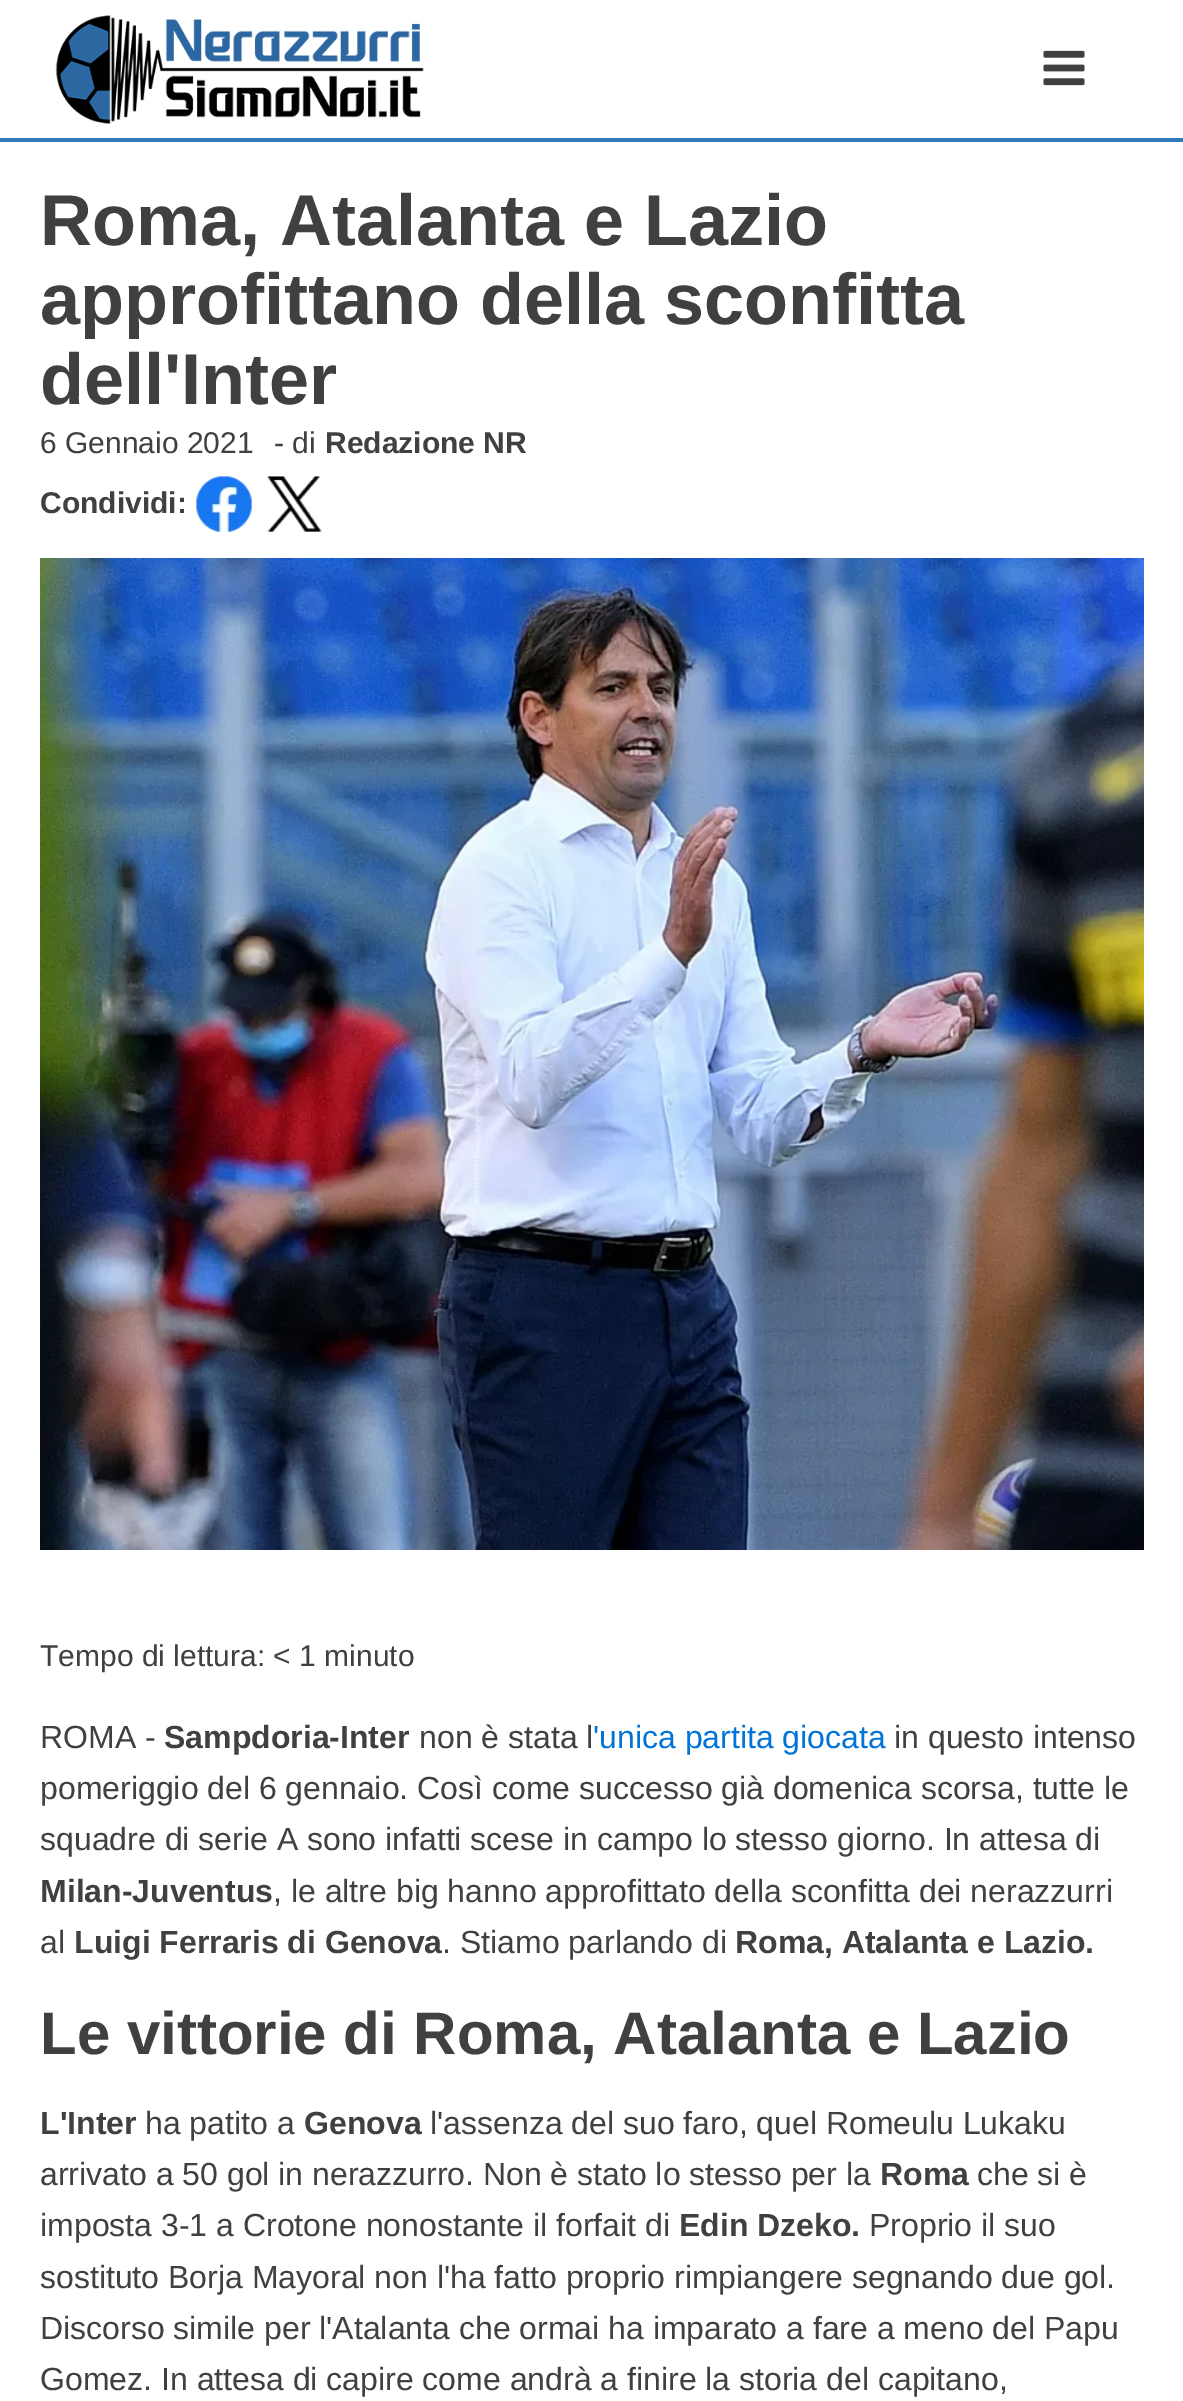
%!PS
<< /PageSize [1183 2401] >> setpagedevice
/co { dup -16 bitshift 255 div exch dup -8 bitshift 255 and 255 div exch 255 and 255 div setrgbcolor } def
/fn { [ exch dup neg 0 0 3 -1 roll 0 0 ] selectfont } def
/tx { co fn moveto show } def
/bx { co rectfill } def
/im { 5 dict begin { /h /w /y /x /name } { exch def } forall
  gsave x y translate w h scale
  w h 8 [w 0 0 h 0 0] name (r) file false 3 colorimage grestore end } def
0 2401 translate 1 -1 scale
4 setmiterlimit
0 0 1183 2401 16#FFFFFF bx
0 138 1183 4 16#3079BA bx
(media/1.raw) 55 15 369 109 im
(media/2.raw) 1043 50 42 36 im
(media/3.raw) 196 476 56 56 im
(media/4.raw) 267 476 55 56 im
(media/5.raw) 40 558 1104 992 im
(Roma, Atalanta e Lazio) 40 245 /LiberationSans-Bold 72 16#404040 tx
(approfittano della sconfitta) 40 324 /LiberationSans-Bold 72 16#404040 tx
(dell'Inter) 40 404 /LiberationSans-Bold 72 16#404040 tx
(6 Gennaio 2021) 40 453 /LiberationSans-Regular 30 16#404040 tx
(- di) 274 453 /LiberationSans-Regular 30 16#404040 tx
(Redazione NR) 325 453 /LiberationSans-Bold 30 16#404040 tx
(Condividi:) 40 513 /LiberationSans-Bold 30 16#404040 tx
(Tempo di lettura: < 1 minuto) 40 1666 /LiberationSans-Regular 30 16#404040 tx
(ROMA -) 40 1748 /LiberationSans-Regular 32 16#404040 tx
(Sampdoria-Inter) 164 1748 /LiberationSans-Bold 32 16#404040 tx
(non è stata l) 419 1748 /LiberationSans-Regular 32 16#404040 tx
('unica partita giocata) 593 1748 /LiberationSans-Regular 32 16#0074DB tx
(in questo intenso) 894 1748 /LiberationSans-Regular 32 16#404040 tx
(pomeriggio del 6 gennaio. Così come successo già domenica scorsa, tutte le) 40 1799 /LiberationSans-Regular 32 16#404040 tx
(squadre di serie A sono infatti scese in campo lo stesso giorno. In attesa di) 40 1850 /LiberationSans-Regular 32 16#404040 tx
(Milan-Juventus) 40 1902 /LiberationSans-Bold 32 16#404040 tx
(, le altre big hanno approfittato della sconfitta dei nerazzurri) 273 1902 /LiberationSans-Regular 32 16#404040 tx
(al) 40 1953 /LiberationSans-Regular 32 16#404040 tx
(Luigi Ferraris di Genova) 74 1953 /LiberationSans-Bold 32 16#404040 tx
(. Stiamo parlando di) 442 1953 /LiberationSans-Regular 32 16#404040 tx
(Roma, Atalanta e Lazio.) 735 1953 /LiberationSans-Bold 32 16#404040 tx
(Le vittorie di Roma, Atalanta e Lazio) 40 2054 /LiberationSans-Bold 60 16#404040 tx
(L'Inter) 40 2134 /LiberationSans-Bold 32 16#404040 tx
(ha patito a) 145 2134 /LiberationSans-Regular 32 16#404040 tx
(Genova) 304 2134 /LiberationSans-Bold 32 16#404040 tx
(l'assenza del suo faro, quel Romeulu Lukaku) 430 2134 /LiberationSans-Regular 32 16#404040 tx
(arrivato a 50 gol in nerazzurro. Non è stato lo stesso per la) 40 2185 /LiberationSans-Regular 32 16#404040 tx
(Roma) 880 2185 /LiberationSans-Bold 32 16#404040 tx
(che si è) 977 2185 /LiberationSans-Regular 32 16#404040 tx
(imposta 3-1 a Crotone nonostante il forfait di) 40 2236 /LiberationSans-Regular 32 16#404040 tx
(Edin Dzeko.) 679 2236 /LiberationSans-Bold 32 16#404040 tx
(Proprio il suo) 869 2236 /LiberationSans-Regular 32 16#404040 tx
(sostituto Borja Mayoral non l'ha fatto proprio rimpiangere segnando due gol.) 40 2288 /LiberationSans-Regular 32 16#404040 tx
(Discorso simile per l'Atalanta che ormai ha imparato a fare a meno del Papu) 40 2339 /LiberationSans-Regular 32 16#404040 tx
(Gomez. In attesa di capire come andrà a finire la storia del capitano,) 40 2390 /LiberationSans-Regular 32 16#404040 tx
showpage
